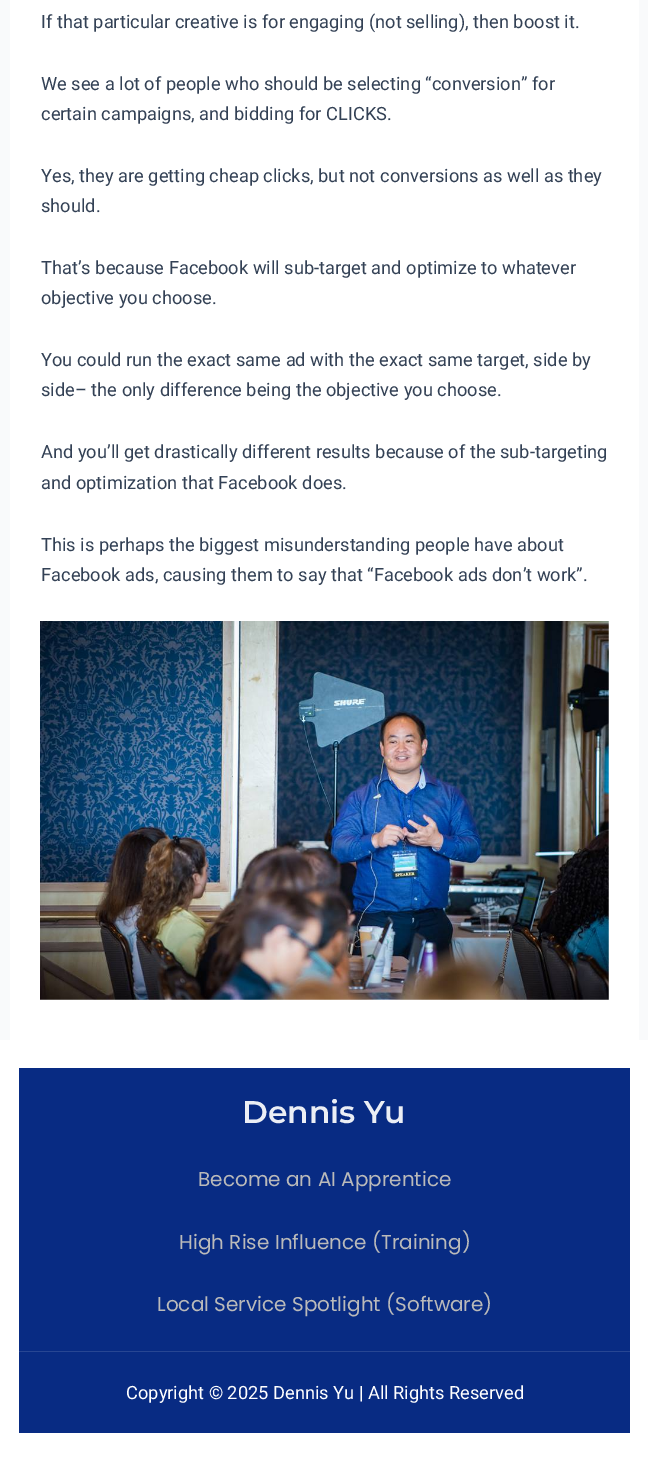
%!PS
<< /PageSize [648 1460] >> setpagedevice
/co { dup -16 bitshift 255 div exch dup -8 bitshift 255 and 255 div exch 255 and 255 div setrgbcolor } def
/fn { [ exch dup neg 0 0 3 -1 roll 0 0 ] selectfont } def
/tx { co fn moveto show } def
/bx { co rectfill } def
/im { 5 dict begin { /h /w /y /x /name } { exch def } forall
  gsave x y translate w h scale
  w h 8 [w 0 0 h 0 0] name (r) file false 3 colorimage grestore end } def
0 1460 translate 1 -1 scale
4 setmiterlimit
0 0 648 1460 16#F9FAFB bx
10 0 629 1040 16#FFFFFF bx
(media/1.raw) 40 621 569 379 im
0 1040 648 420 16#FFFFFF bx
19 1068 611 365 16#082B83 bx
19 1351 611 1 16#274693 bx
(If that particular creative is for engaging \(not selling\), then boost it.) 41 28 /Roboto-Regular 18.25 16#334155 tx
(We see a lot of people who should be selecting “conversion” for) 41 90 /Roboto-Regular 18.25 16#334155 tx
(certain campaigns, and bidding for CLICKS.) 41 120 /Roboto-Regular 18.25 16#334155 tx
(Yes, they are getting cheap clicks, but not conversions as well as they) 41 182 /Roboto-Regular 18.25 16#334155 tx
(should.) 41 212 /Roboto-Regular 18.25 16#334155 tx
(That’s because Facebook will sub-target and optimize to whatever) 41 274 /Roboto-Regular 18.25 16#334155 tx
(objective you choose.) 41 304 /Roboto-Regular 18.25 16#334155 tx
(You could run the exact same ad with the exact same target, side by) 41 366 /Roboto-Regular 18.25 16#334155 tx
(side– the only difference being the objective you choose.) 41 396 /Roboto-Regular 18.25 16#334155 tx
(And you’ll get drastically different results because of the sub-targeting) 41 458 /Roboto-Regular 18.25 16#334155 tx
(and optimization that Facebook does.) 41 489 /Roboto-Regular 18.25 16#334155 tx
(This is perhaps the biggest misunderstanding people have about) 41 551 /Roboto-Regular 18.25 16#334155 tx
(Facebook ads, causing them to say that “Facebook ads don’t work”.) 41 581 /Roboto-Regular 18.25 16#334155 tx
(Dennis Yu) 242 1123 /Montserrat-SemiBold 31.25 16#EBEEF5 tx
(Become an AI Apprentice) 198 1186 /Poppins-Regular 20 16#BABABA tx
(High Rise Influence \(Training\)) 179 1249 /Poppins-Regular 20 16#BABABA tx
(Local Service Spotlight \(Software\)) 157 1311 /Poppins-Regular 20 16#BABABA tx
(Copyright © 2025 Dennis Yu | All Rights Reserved) 126 1399 /Roboto-Regular 18.25 16#FFFFFF tx
showpage
